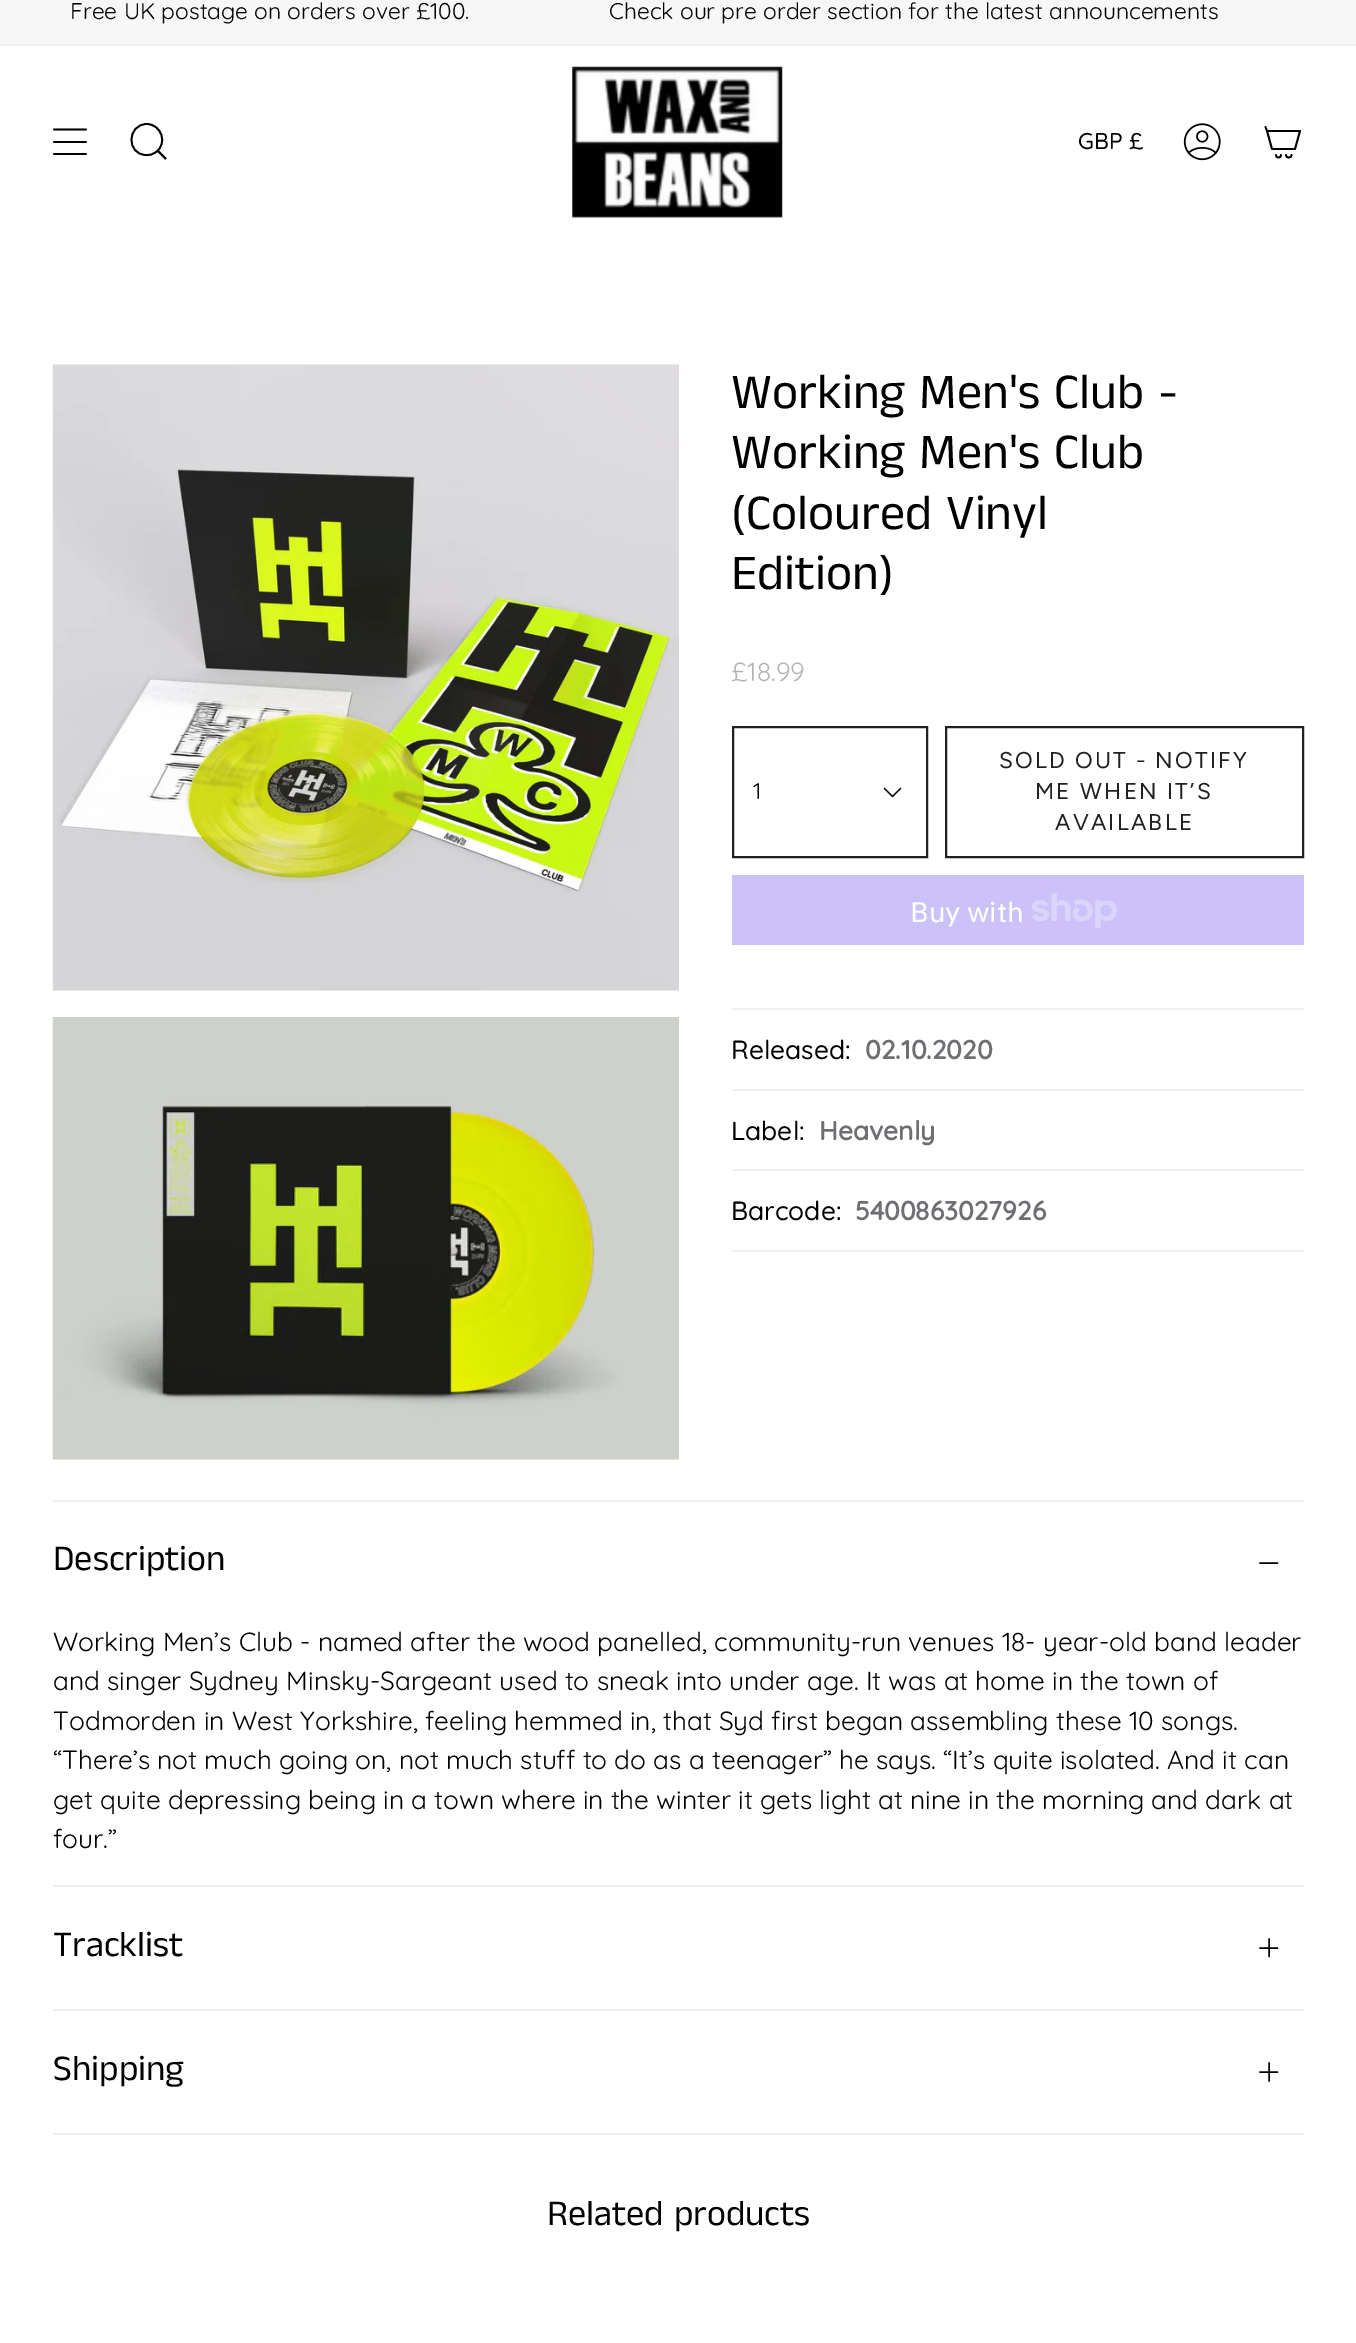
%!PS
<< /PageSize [1356 2343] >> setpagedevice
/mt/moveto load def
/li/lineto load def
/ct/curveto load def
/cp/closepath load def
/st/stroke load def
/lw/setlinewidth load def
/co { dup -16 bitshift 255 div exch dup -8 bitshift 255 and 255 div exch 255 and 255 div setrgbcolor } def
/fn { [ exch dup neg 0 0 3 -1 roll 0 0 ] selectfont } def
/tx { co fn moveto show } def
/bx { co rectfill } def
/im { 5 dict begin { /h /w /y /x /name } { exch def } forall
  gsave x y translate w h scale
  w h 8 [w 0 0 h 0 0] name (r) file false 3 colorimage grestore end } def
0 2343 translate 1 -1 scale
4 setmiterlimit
0 0 1356 2343 16#FFFFFF bx
0 0 1356 44 16#F7F7F7 bx
0 44 1356 2 16#F0F0F0 bx
16#000000 co
1.8 lw
1 setlinecap
1 setlinejoin
54 129.5 mt 86 129.5 li 54 142 mt 86 142 li 54 154 mt 86 154 li st
0 setlinecap
0 setlinejoin
146.5 124 mt 161.5 124 168 143.5 156 152 ct 153 154.5 149.5 155.5 146 155 ct 126 154.5 127 124.5 146.5 124 ct cp 157.5 150.5 mt 166 159 li st
(media/1.raw) 572 66 211 152 im
(media/2.raw) 1183 123 38 38 im
1 setlinecap
1 setlinejoin
1267 131 mt 1300 131 li 1295 149 li 1272 149 li cp 1267 131 mt 1265.5 127 li 1281 155 mt 1281 158.5 1276 158.5 1276 155 ct 1291.5 155 mt 1291.5 158.5 1286 158.5 1286 155 ct st
(media/3.raw) 52 364 627 627 im
(media/4.raw) 52 1017 627 443 im
16#212121 co
2 lw
0 setlinecap
0 setlinejoin
733 727 194 130 rectstroke
16#000000 co
1.3 lw
1 setlinecap
1 setlinejoin
884.5 788.5 mt 892.5 796.5 li 900.5 788.5 li st
16#212121 co
2 lw
0 setlinecap
0 setlinejoin
946 727 357 130 rectstroke
732 875 572 70 16#CCC2F9 bx
(media/5.raw) 1031 893 86 35 im
732 1008 572 2 16#F0F0F0 bx
732 1089 572 2 16#F0F0F0 bx
732 1169 572 2 16#F0F0F0 bx
732 1250 572 2 16#F0F0F0 bx
53 1500 1251 2 16#F0F0F0 bx
16#000000 co
1.5 lw
1 setlinecap
1 setlinejoin
1260 1563 mt 1277.5 1563 li st
53 1885 1251 2 16#F0F0F0 bx
16#000000 co
1260 1948 mt 1269 1948 li 1277.5 1948 mt 1269 1948 li 1269 1948 mt 1269 1939 li 1269 1948 mt 1269 1956.5 li st
53 2009 1251 2 16#F0F0F0 bx
53 2133 1251 2 16#F0F0F0 bx
16#000000 co
1260 2072 mt 1269 2072 li 1277.5 2072 mt 1269 2072 li 1269 2072 mt 1269 2063 li 1269 2072 mt 1269 2081 li st
(Free UK postage on orders over £100.) 70 19 /Quicksand-Regular 22.75 16#000000 tx
(Check our pre order section for the latest announcements) 609 19 /Quicksand-Regular 22.75 16#000000 tx
(GBP £) 1078 149 /Quicksand-Medium 22.75 16#000000 tx
(Working Men's Club -) 731 408 /AnekTamil-Regular 50.25 16#000000 tx
(Working Men's Club) 731 468 /AnekTamil-Regular 50.25 16#000000 tx
(\(Coloured Vinyl) 731 529 /AnekTamil-Regular 50.25 16#000000 tx
(Edition\)) 731 589 /AnekTamil-Regular 50.25 16#000000 tx
(£18.99) 731 681 /Quicksand-Regular 26.25 16#B3B3B3 tx
(1) 753 799 /Quicksand-Regular 22.75 16#000000 tx
/Figtree-Regular 22.75 fn
16#212121 co
999 768 mt 2.25 0 (SOLD OUT - NOTIFY) ashow
1035 799 mt 2.25 0 (ME WHEN IT’S) ashow
1055 830 mt 2.25 0 (AVAILABLE) ashow
(Buy with) 910 922 /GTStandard-Regular 28 16#FFFFFF tx
(Released:) 731 1059 /Quicksand-Medium 26.25 16#000000 tx
(02.10.2020) 865 1059 /Quicksand-Bold 26.25 16#6D6F73 tx
(Label:) 731 1140 /Quicksand-Medium 26.25 16#000000 tx
(Heavenly) 819 1140 /Quicksand-Bold 26.25 16#6D6F73 tx
(Barcode:) 731 1220 /Quicksand-Medium 26.25 16#000000 tx
(5400863027926) 855 1220 /Quicksand-Bold 26.25 16#6D6F73 tx
(Description) 53 1570 /AnekTamil-Regular 36.25 16#000000 tx
(Working Men’s Club - named after the wood panelled, community-run venues 18- year-old band leader) 53 1651 /Quicksand-Regular 26.25 16#000000 tx
(and singer Sydney Minsky-Sargeant used to sneak into under age. It was at home in the town of) 53 1690 /Quicksand-Regular 26.25 16#000000 tx
(Todmorden in West Yorkshire, feeling hemmed in, that Syd first began assembling these 10 songs.) 53 1730 /Quicksand-Regular 26.25 16#000000 tx
(“There’s not much going on, not much stuff to do as a teenager” he says. “It’s quite isolated. And it can) 53 1769 /Quicksand-Regular 26.25 16#000000 tx
(get quite depressing being in a town where in the winter it gets light at nine in the morning and dark at) 53 1809 /Quicksand-Regular 26.25 16#000000 tx
(four.”) 53 1848 /Quicksand-Regular 26.25 16#000000 tx
(Tracklist) 53 1956 /AnekTamil-Regular 36.25 16#000000 tx
(Shipping) 53 2080 /AnekTamil-Regular 36.25 16#000000 tx
(Related products) 547 2225 /AnekTamil-Regular 36.25 16#000000 tx
showpage
